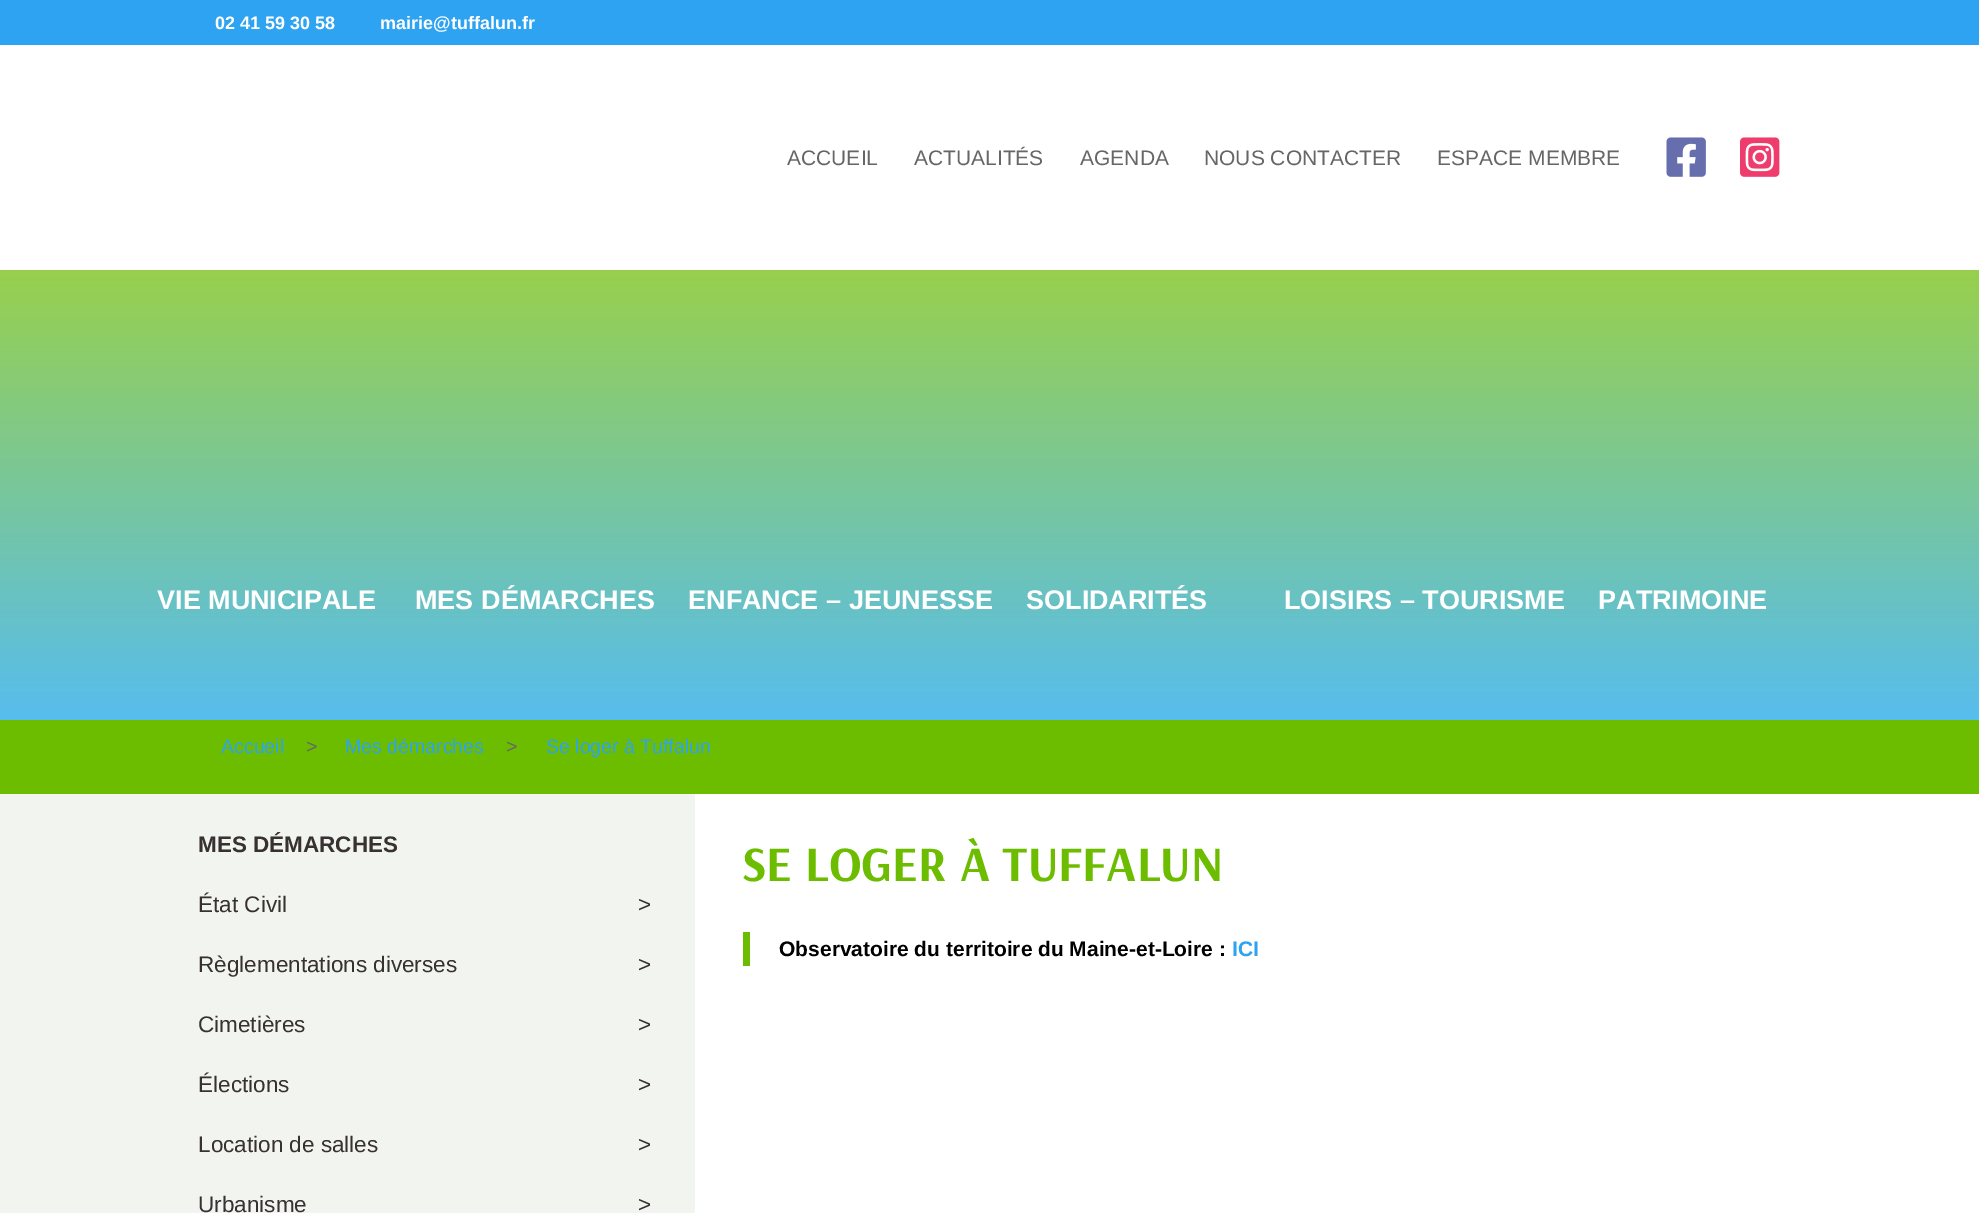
%!PS
<< /PageSize [1979 1213] >> setpagedevice
/mt/moveto load def
/li/lineto load def
/cp/closepath load def
/gs/gsave load def
/gr/grestore load def
/co { dup -16 bitshift 255 div exch dup -8 bitshift 255 and 255 div exch 255 and 255 div setrgbcolor } def
/fn { [ exch dup neg 0 0 3 -1 roll 0 0 ] selectfont } def
/tx { co fn moveto show } def
/bx { co rectfill } def
/im { 5 dict begin { /h /w /y /x /name } { exch def } forall
  gsave x y translate w h scale
  w h 8 [w 0 0 h 0 0] name (r) file false 3 colorimage grestore end } def
0 1213 translate 1 -1 scale
4 setmiterlimit
0 0 1979 1213 16#FFFFFF bx
0 0 1979 45 16#2EA3F2 bx
(media/1.raw) 1666 137 40 40 im
(media/2.raw) 1740 137 40 40 im
gs 0 270 mt 1979 270 li 1979 720 li 0 720 li cp clip newpath
<< /ShadingType 2 /ColorSpace /DeviceRGB /Coords [990 270 990 720] /Extend [true true] /Function << /FunctionType 2 /Domain [0 1] /C0 [.596 .816 .302] /C1 [.341 .741 .933] /N 1 >> >> shfill gr
0 720 1979 74 16#6CBD00 bx
0 794 695 419 16#F1F4EF bx
743 932 7 34 16#6CBD00 bx
(02 41 59 30 58) 215 29 /LiberationSans-Bold 18 16#FFFFFF tx
(mairie@tuffalun.fr) 380 29 /LiberationSans-Bold 18 16#FFFFFF tx
(ACCUEIL) 787 165 /LiberationSans-Regular 21 16#666666 tx
(ACTUALITÉS) 914 165 /LiberationSans-Regular 21 16#666666 tx
(AGENDA) 1080 165 /LiberationSans-Regular 21 16#666666 tx
(NOUS CONTACTER) 1204 165 /LiberationSans-Regular 21 16#666666 tx
(ESPACE MEMBRE) 1437 165 /LiberationSans-Regular 21 16#666666 tx
(VIE MUNICIPALE) 157 609 /LiberationSans-Bold 27 16#FFFFFF tx
(MES DÉMARCHES) 415 609 /LiberationSans-Bold 27 16#FFFFFF tx
(ENFANCE – JEUNESSE) 688 609 /LiberationSans-Bold 27 16#FFFFFF tx
(SOLIDARITÉS) 1026 609 /LiberationSans-Bold 27 16#FFFFFF tx
(LOISIRS – TOURISME) 1284 609 /LiberationSans-Bold 27 16#FFFFFF tx
(PATRIMOINE) 1598 609 /LiberationSans-Bold 27 16#FFFFFF tx
(Accueil) 221 753 /LiberationSans-Regular 19.5 16#2EA3F2 tx
(>) 306 753 /LiberationSans-Regular 19.5 16#666666 tx
(Mes démarches) 345 753 /LiberationSans-Regular 19.5 16#2EA3F2 tx
(>) 506 753 /LiberationSans-Regular 19.5 16#666666 tx
(Se loger à Tuffalun) 546 753 /LiberationSans-Regular 19.5 16#2EA3F2 tx
(MES DÉMARCHES) 198 852 /LiberationSans-Bold 22.5 16#383131 tx
(État Civil) 198 912 /LiberationSans-Regular 22.5 16#383131 tx
(>) 638 912 /LiberationSans-Regular 22.5 16#383131 tx
(Règlementations diverses) 198 972 /LiberationSans-Regular 22.5 16#383131 tx
(>) 638 972 /LiberationSans-Regular 22.5 16#383131 tx
(Cimetières) 198 1032 /LiberationSans-Regular 22.5 16#383131 tx
(>) 638 1032 /LiberationSans-Regular 22.5 16#383131 tx
(Élections) 198 1092 /LiberationSans-Regular 22.5 16#383131 tx
(>) 638 1092 /LiberationSans-Regular 22.5 16#383131 tx
(Location de salles) 198 1152 /LiberationSans-Regular 22.5 16#383131 tx
(>) 638 1152 /LiberationSans-Regular 22.5 16#383131 tx
(Urbanisme) 198 1212 /LiberationSans-Regular 22.5 16#383131 tx
(>) 638 1212 /LiberationSans-Regular 22.5 16#383131 tx
(SE LOGER À TUFFALUN) 742 881 /Arsenal-Bold 49.5 16#6CBD00 tx
(Observatoire du territoire du Maine-et-Loire :) 779 956 /LiberationSans-Bold 21 16#000000 tx
(ICI) 1232 956 /LiberationSans-Bold 21 16#2EA3F2 tx
showpage
